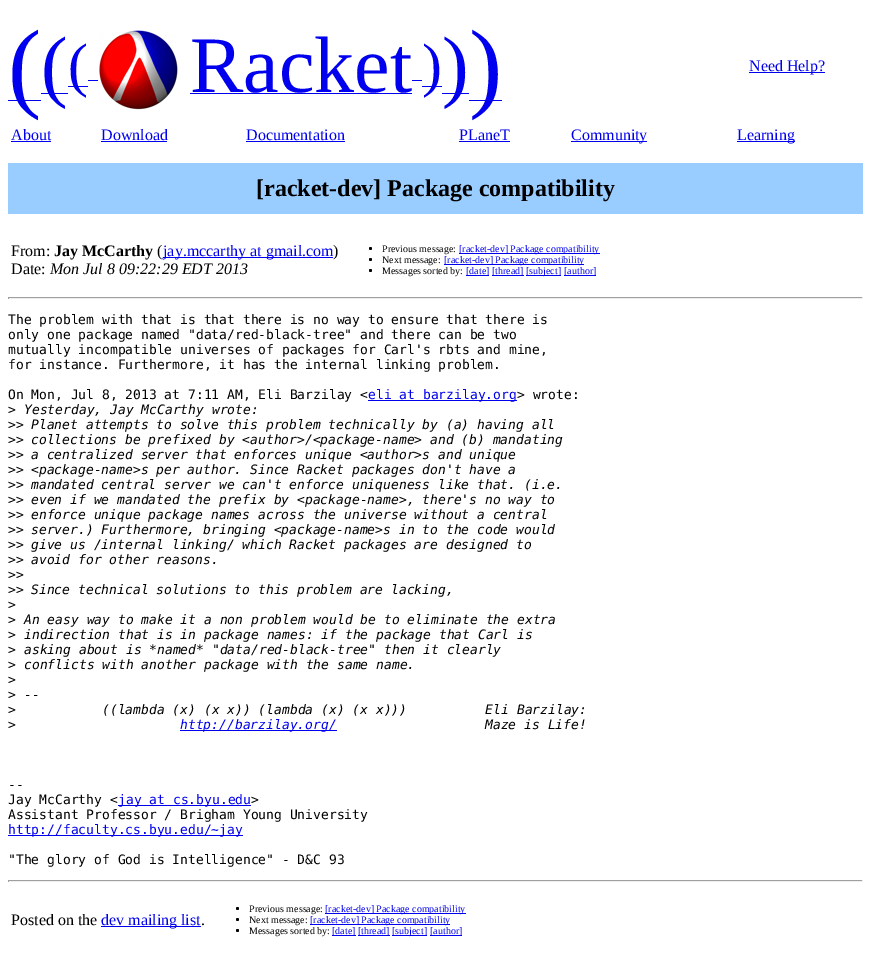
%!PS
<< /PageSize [871 971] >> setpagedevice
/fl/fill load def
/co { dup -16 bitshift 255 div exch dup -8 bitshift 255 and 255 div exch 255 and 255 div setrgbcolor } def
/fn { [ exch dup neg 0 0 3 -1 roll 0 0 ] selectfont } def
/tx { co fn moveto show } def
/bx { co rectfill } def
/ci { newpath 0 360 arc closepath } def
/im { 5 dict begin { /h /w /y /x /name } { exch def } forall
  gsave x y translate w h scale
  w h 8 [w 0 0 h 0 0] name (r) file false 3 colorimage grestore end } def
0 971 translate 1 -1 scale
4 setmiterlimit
0 0 871 971 16#FFFFFF bx
8 100 33 1 16#0000EE bx
41 93 27 1 16#0000EE bx
68 86 20 1 16#0000EE bx
88 80 10 1 16#0000EE bx
(media/1.raw) 99 30 79 80 im
190 93 222 1 16#0000EE bx
412 80 10 1 16#0000EE bx
422 86 20 1 16#0000EE bx
442 93 27 1 16#0000EE bx
469 100 33 1 16#0000EE bx
749 72 76 1 16#0000EE bx
11 141 40 1 16#0000EE bx
101 141 66 1 16#0000EE bx
246 141 99 1 16#0000EE bx
459 141 51 1 16#0000EE bx
571 141 76 1 16#0000EE bx
737 141 58 1 16#0000EE bx
8 163 855 51 16#99CCFF bx
163 257 170 1 16#0000EE bx
16#000000 co
370.5 248.5 1.5 ci fl
459 253 141 1 16#0000EE bx
16#000000 co
370.5 259.5 1.5 ci fl
444 264 140 1 16#0000EE bx
16#000000 co
370.5 270.5 1.5 ci fl
466 275 23 1 16#0000EE bx
492 275 32 1 16#0000EE bx
526 275 35 1 16#0000EE bx
564 275 32 1 16#0000EE bx
8 297 855 1 16#9F9F9F bx
862 297 1 2 16#EEEEEE bx
8 298 855 1 16#EEEEEE bx
8 297 1 2 16#9F9F9F bx
368 400 149 1 16#0000EE bx
180 730 157 1 16#0000EE bx
118 805 133 1 16#0000EE bx
8 835 235 1 16#0000EE bx
8 880 855 1 16#9F9F9F bx
862 880 1 2 16#EEEEEE bx
8 881 855 1 16#EEEEEE bx
8 880 1 2 16#9F9F9F bx
101 926 100 1 16#0000EE bx
16#000000 co
237.5 908.5 1.5 ci fl
325 913 141 1 16#0000EE bx
16#000000 co
237.5 919.5 1.5 ci fl
310 924 140 1 16#0000EE bx
16#000000 co
237.5 930.5 1.5 ci fl
332 935 24 1 16#0000EE bx
358 935 32 1 16#0000EE bx
392 935 35 1 16#0000EE bx
430 935 32 1 16#0000EE bx
(\() 8 99 /LiberationSerif-Regular 100 16#0000EE tx
(\() 41 92 /LiberationSerif-Regular 80 16#0000EE tx
(\() 68 85 /LiberationSerif-Regular 60 16#0000EE tx
(Racket) 190 92 /LiberationSerif-Regular 80 16#0000EE tx
(\)) 422 85 /LiberationSerif-Regular 60 16#0000EE tx
(\)) 442 92 /LiberationSerif-Regular 80 16#0000EE tx
(\)) 469 99 /LiberationSerif-Regular 100 16#0000EE tx
(Need Help?) 749 71 /LiberationSerif-Regular 16 16#0000EE tx
(About) 11 140 /LiberationSerif-Regular 16 16#0000EE tx
(Download) 101 140 /LiberationSerif-Regular 16 16#0000EE tx
(Documentation) 246 140 /LiberationSerif-Regular 16 16#0000EE tx
(PLaneT) 459 140 /LiberationSerif-Regular 16 16#0000EE tx
(Community) 571 140 /LiberationSerif-Regular 16 16#0000EE tx
(Learning) 737 140 /LiberationSerif-Regular 16 16#0000EE tx
([racket-dev] Package compatibility) 256 196 /LiberationSerif-Bold 24 16#000000 tx
(From:) 11 256 /LiberationSerif-Regular 16 16#000000 tx
(Jay McCarthy) 54 256 /LiberationSerif-Bold 16 16#000000 tx
(\() 157 256 /LiberationSerif-Regular 16 16#000000 tx
(jay.mccarthy at gmail.com) 163 256 /LiberationSerif-Regular 16 16#0000EE tx
(\)) 333 256 /LiberationSerif-Regular 16 16#000000 tx
(Date:) 11 274 /LiberationSerif-Regular 16 16#000000 tx
(Mon Jul 8 09:22:29 EDT 2013) 50 274 /LiberationSerif-Italic 16 16#000000 tx
(Previous message:) 382 252 /LiberationSerif-Regular 10 16#000000 tx
([racket-dev] Package compatibility) 459 252 /LiberationSerif-Regular 10 16#0000EE tx
(Next message:) 382 263 /LiberationSerif-Regular 10 16#000000 tx
([racket-dev] Package compatibility) 444 263 /LiberationSerif-Regular 10 16#0000EE tx
(Messages sorted by:) 382 274 /LiberationSerif-Regular 10 16#000000 tx
([date]) 466 274 /LiberationSerif-Regular 10 16#0000EE tx
([thread]) 492 274 /LiberationSerif-Regular 10 16#0000EE tx
([subject]) 526 274 /LiberationSerif-Regular 10 16#0000EE tx
([author]) 564 274 /LiberationSerif-Regular 10 16#0000EE tx
(The problem with that is that there is no way to ensure that there is) 8 324 /DejaVuSansMono-Regular 13 16#000000 tx
(only one package named "data/red-black-tree" and there can be two) 8 339 /DejaVuSansMono-Regular 13 16#000000 tx
(mutually incompatible universes of packages for Carl's rbts and mine,) 8 354 /DejaVuSansMono-Regular 13 16#000000 tx
(for instance. Furthermore, it has the internal linking problem.) 8 369 /DejaVuSansMono-Regular 13 16#000000 tx
(On Mon, Jul 8, 2013 at 7:11 AM, Eli Barzilay <) 8 399 /DejaVuSansMono-Regular 13 16#000000 tx
(eli at barzilay.org) 368 399 /DejaVuSansMono-Regular 13 16#0000EE tx
(> wrote:) 517 399 /DejaVuSansMono-Regular 13 16#000000 tx
(>) 8 414 /DejaVuSansMono-Regular 13 16#000000 tx
(Yesterday, Jay McCarthy wrote:) 24 414 /DejaVuSansMono-Italic 13 16#000000 tx
(>>) 8 429 /DejaVuSansMono-Regular 13 16#000000 tx
(Planet attempts to solve this problem technically by \(a\) having all) 31 429 /DejaVuSansMono-Italic 13 16#000000 tx
(>>) 8 444 /DejaVuSansMono-Regular 13 16#000000 tx
(collections be prefixed by <author>/<package-name> and \(b\) mandating) 31 444 /DejaVuSansMono-Italic 13 16#000000 tx
(>>) 8 459 /DejaVuSansMono-Regular 13 16#000000 tx
(a centralized server that enforces unique <author>s and unique) 31 459 /DejaVuSansMono-Italic 13 16#000000 tx
(>>) 8 474 /DejaVuSansMono-Regular 13 16#000000 tx
(<package-name>s per author. Since Racket packages don't have a) 31 474 /DejaVuSansMono-Italic 13 16#000000 tx
(>>) 8 489 /DejaVuSansMono-Regular 13 16#000000 tx
(mandated central server we can't enforce uniqueness like that. \(i.e.) 31 489 /DejaVuSansMono-Italic 13 16#000000 tx
(>>) 8 504 /DejaVuSansMono-Regular 13 16#000000 tx
(even if we mandated the prefix by <package-name>, there's no way to) 31 504 /DejaVuSansMono-Italic 13 16#000000 tx
(>>) 8 519 /DejaVuSansMono-Regular 13 16#000000 tx
(enforce unique package names across the universe without a central) 31 519 /DejaVuSansMono-Italic 13 16#000000 tx
(>>) 8 534 /DejaVuSansMono-Regular 13 16#000000 tx
(server.\) Furthermore, bringing <package-name>s in to the code would) 31 534 /DejaVuSansMono-Italic 13 16#000000 tx
(>>) 8 549 /DejaVuSansMono-Regular 13 16#000000 tx
(give us /internal linking/ which Racket packages are designed to) 31 549 /DejaVuSansMono-Italic 13 16#000000 tx
(>>) 8 564 /DejaVuSansMono-Regular 13 16#000000 tx
(avoid for other reasons.) 31 564 /DejaVuSansMono-Italic 13 16#000000 tx
(>>) 8 579 /DejaVuSansMono-Regular 13 16#000000 tx
(>>) 8 594 /DejaVuSansMono-Regular 13 16#000000 tx
(Since technical solutions to this problem are lacking,) 31 594 /DejaVuSansMono-Italic 13 16#000000 tx
(>) 8 609 /DejaVuSansMono-Regular 13 16#000000 tx
(>) 8 624 /DejaVuSansMono-Regular 13 16#000000 tx
(An easy way to make it a non problem would be to eliminate the extra) 24 624 /DejaVuSansMono-Italic 13 16#000000 tx
(>) 8 639 /DejaVuSansMono-Regular 13 16#000000 tx
(indirection that is in package names: if the package that Carl is) 24 639 /DejaVuSansMono-Italic 13 16#000000 tx
(>) 8 654 /DejaVuSansMono-Regular 13 16#000000 tx
(asking about is *named* "data/red-black-tree" then it clearly) 24 654 /DejaVuSansMono-Italic 13 16#000000 tx
(>) 8 669 /DejaVuSansMono-Regular 13 16#000000 tx
(conflicts with another package with the same name.) 24 669 /DejaVuSansMono-Italic 13 16#000000 tx
(>) 8 684 /DejaVuSansMono-Regular 13 16#000000 tx
(>) 8 699 /DejaVuSansMono-Regular 13 16#000000 tx
(--) 24 699 /DejaVuSansMono-Italic 13 16#000000 tx
(>) 8 714 /DejaVuSansMono-Regular 13 16#000000 tx
(\(\(lambda \(x\) \(x x\)\) \(lambda \(x\) \(x x\)\)\)          Eli Barzilay:) 102 714 /DejaVuSansMono-Italic 13 16#000000 tx
(>) 8 729 /DejaVuSansMono-Regular 13 16#000000 tx
(http://barzilay.org/) 180 729 /DejaVuSansMono-Italic 13 16#0000EE tx
(Maze is Life!) 485 729 /DejaVuSansMono-Italic 13 16#000000 tx
(--) 8 789 /DejaVuSansMono-Regular 13 16#000000 tx
(Jay McCarthy <) 8 804 /DejaVuSansMono-Regular 13 16#000000 tx
(jay at cs.byu.edu) 118 804 /DejaVuSansMono-Regular 13 16#0000EE tx
(>) 251 804 /DejaVuSansMono-Regular 13 16#000000 tx
(Assistant Professor / Brigham Young University) 8 819 /DejaVuSansMono-Regular 13 16#000000 tx
(http://faculty.cs.byu.edu/~jay) 8 834 /DejaVuSansMono-Regular 13 16#0000EE tx
("The glory of God is Intelligence" - D&C 93) 8 864 /DejaVuSansMono-Regular 13 16#000000 tx
(Posted on the) 11 925 /LiberationSerif-Regular 16 16#000000 tx
(dev mailing list) 101 925 /LiberationSerif-Regular 16 16#0000EE tx
(.) 201 925 /LiberationSerif-Regular 16 16#000000 tx
(Previous message:) 249 912 /LiberationSerif-Regular 10 16#000000 tx
([racket-dev] Package compatibility) 325 912 /LiberationSerif-Regular 10 16#0000EE tx
(Next message:) 249 923 /LiberationSerif-Regular 10 16#000000 tx
([racket-dev] Package compatibility) 310 923 /LiberationSerif-Regular 10 16#0000EE tx
(Messages sorted by:) 249 934 /LiberationSerif-Regular 10 16#000000 tx
([date]) 332 934 /LiberationSerif-Regular 10 16#0000EE tx
([thread]) 358 934 /LiberationSerif-Regular 10 16#0000EE tx
([subject]) 392 934 /LiberationSerif-Regular 10 16#0000EE tx
([author]) 430 934 /LiberationSerif-Regular 10 16#0000EE tx
showpage
